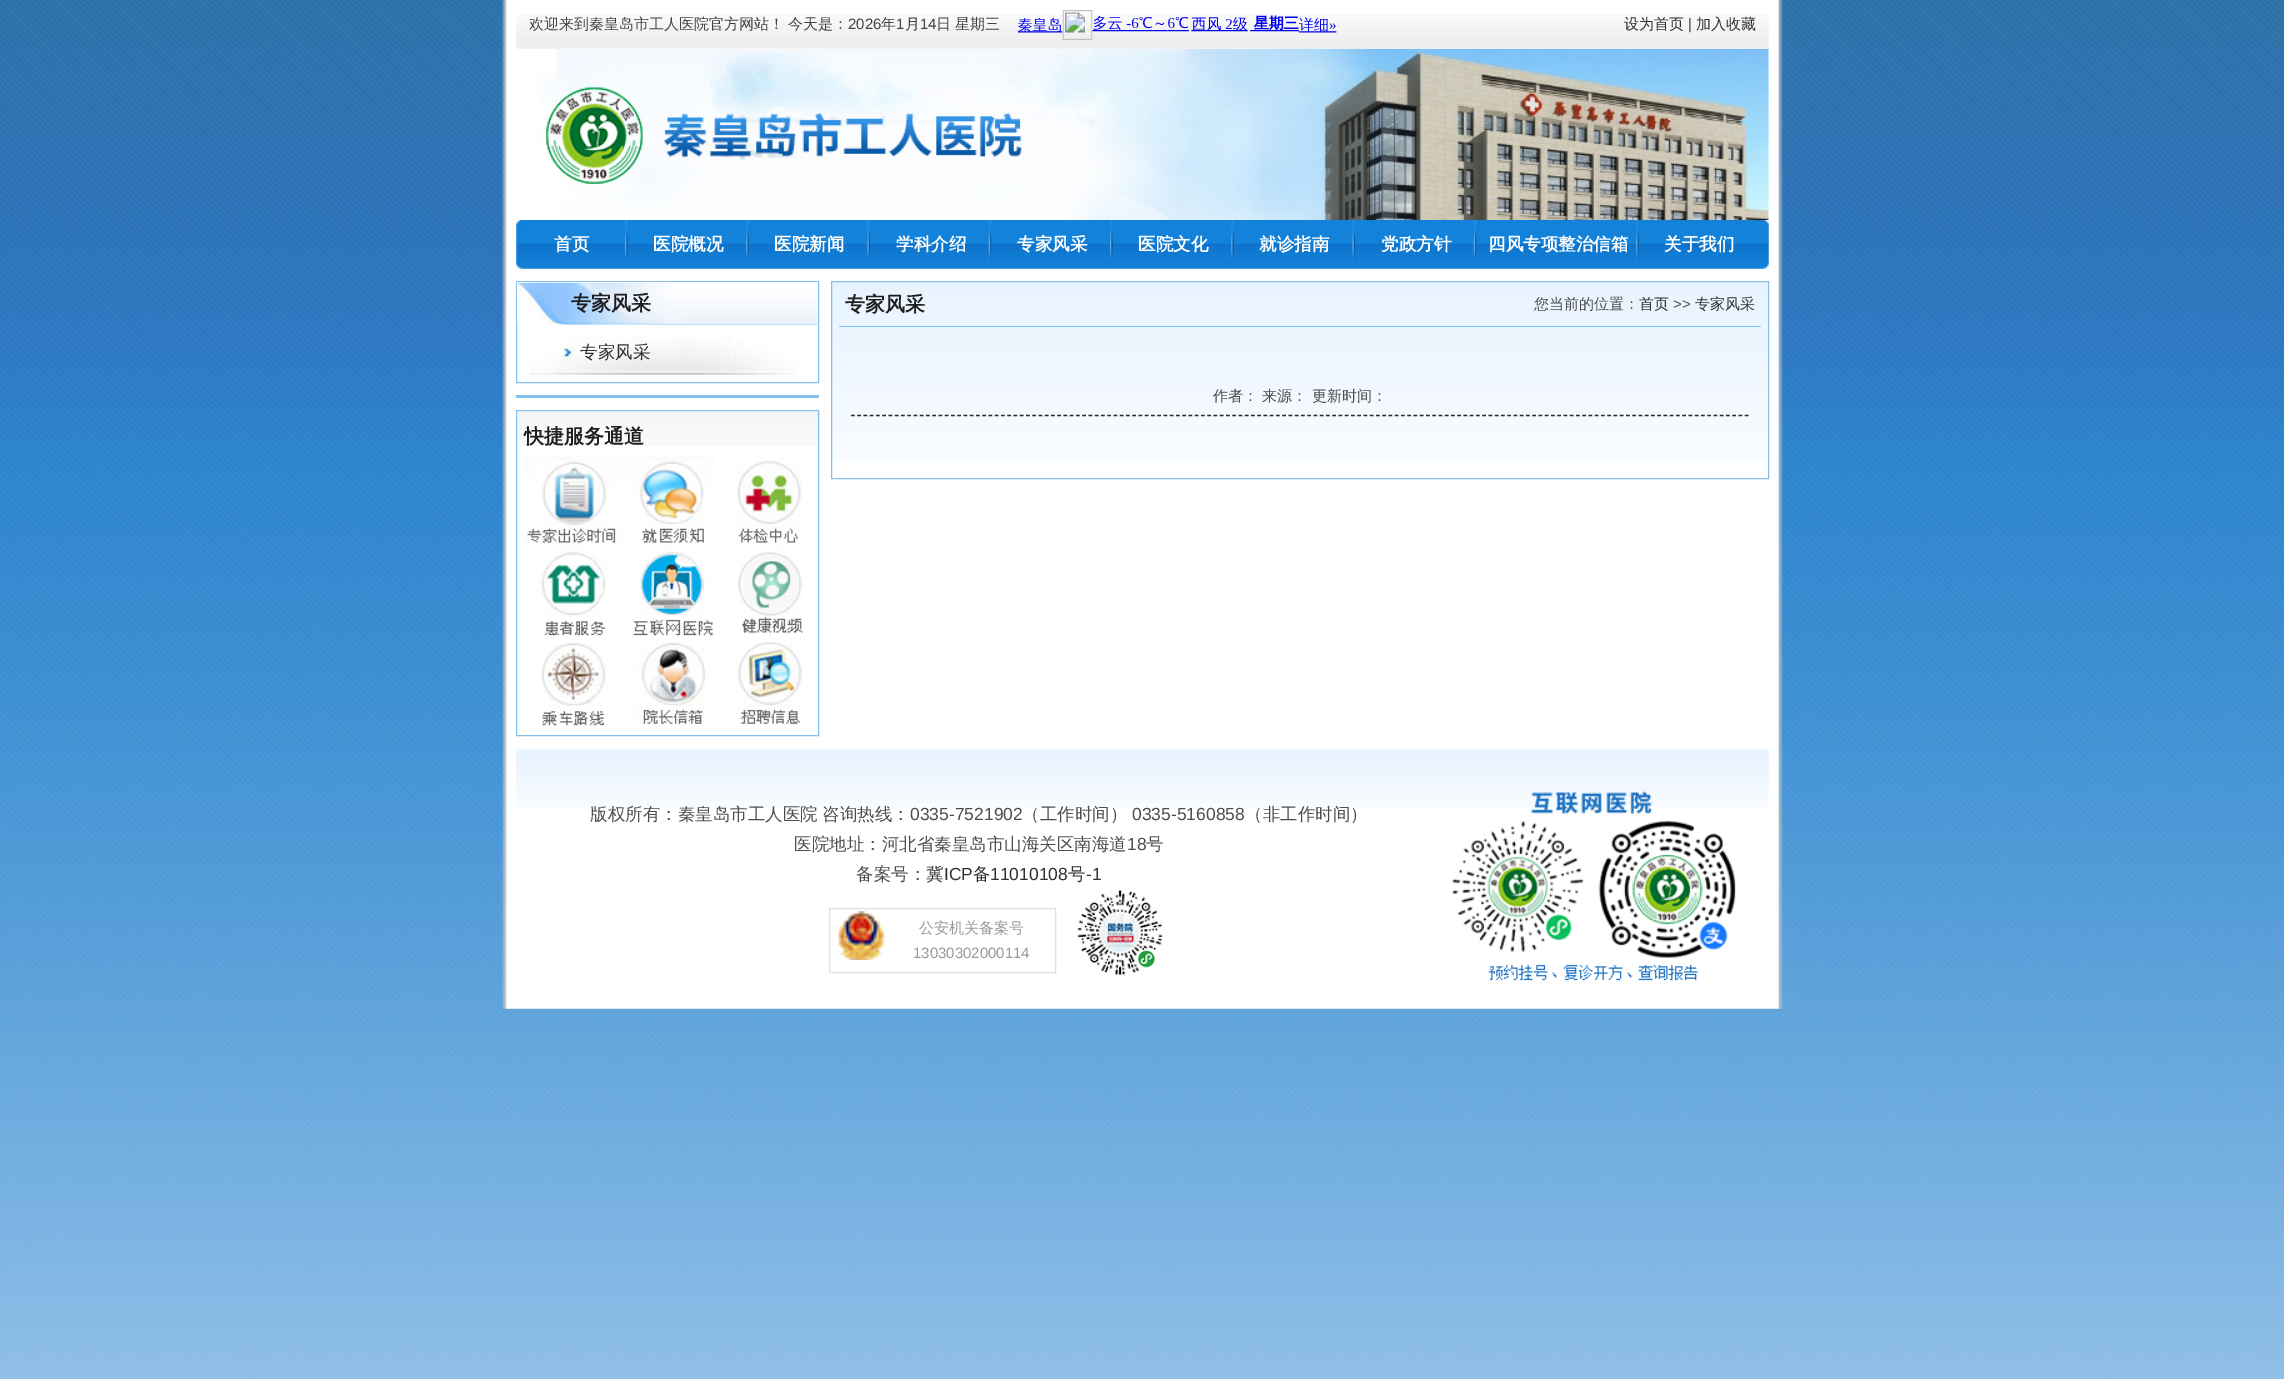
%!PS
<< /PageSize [2284 1379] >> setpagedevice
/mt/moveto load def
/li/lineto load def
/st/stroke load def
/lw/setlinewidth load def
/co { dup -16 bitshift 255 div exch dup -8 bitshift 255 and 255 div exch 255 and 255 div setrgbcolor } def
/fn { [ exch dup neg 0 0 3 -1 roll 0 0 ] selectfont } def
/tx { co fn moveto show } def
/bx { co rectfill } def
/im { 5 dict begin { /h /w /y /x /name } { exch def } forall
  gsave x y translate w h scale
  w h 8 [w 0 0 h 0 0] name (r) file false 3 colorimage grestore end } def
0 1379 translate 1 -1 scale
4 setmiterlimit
0 0 2284 1379 16#FFFFFF bx
(media/1.raw) 0 0 2284 1379 im
(media/2.raw) 502 0 1281 1009 im
(media/3.raw) 516 14 1253 35 im
(media/4.raw) 1017 10 320 30 im
(media/5.raw) 536 48 1233 172 im
(media/6.raw) 516 220 1253 49 im
(media/7.raw) 625 220 3 40 im
(media/8.raw) 746 220 3 40 im
(media/9.raw) 867 220 3 40 im
(media/10.raw) 988 220 4 40 im
(media/7.raw) 1110 220 3 40 im
(media/8.raw) 1231 220 3 40 im
(media/9.raw) 1352 220 3 40 im
(media/10.raw) 1473 220 4 40 im
(media/8.raw) 1636 220 3 40 im
16#85C0ED co
516.5 281.5 302 101 rectstroke
(media/11.raw) 517 282 301 43 im
(media/12.raw) 529 335 268 40 im
516 395 303 3 16#85C0ED bx
(media/13.raw) 517 411 301 35 im
516.5 410.5 302 325 rectstroke
(media/14.raw) 525 455 278 271 im
(media/15.raw) 832 282 936 180 im
831.5 281.5 937 197 rectstroke
839 326 922 1 16#7BC3FF bx
16#292929 co
1.2 lw
[3.75 2.5] 0 setdash
851 415.5 mt 1749 415.5 li st
(media/16.raw) 516 748 1253 61 im
16#E0E0E0 co
1 lw
[] 0 setdash
829.5 908.5 226 64 rectstroke
(media/17.raw) 838 911 47 49 im
(media/18.raw) 1077 889 86 87 im
(media/19.raw) 1452 791 284 190 im
(欢迎来到秦皇岛市工人医院官方网站！) 529 29 /WenQuanYiZenHei-Medium 15 16#424242 tx
(今天是：) 788 29 /WenQuanYiZenHei-Medium 15 16#424242 tx
(2026) 848 29 /LiberationSans-Regular 15 16#424242 tx
(年) 881 29 /WenQuanYiZenHei-Medium 15 16#424242 tx
(1) 896 29 /LiberationSans-Regular 15 16#424242 tx
(月) 905 29 /WenQuanYiZenHei-Medium 15 16#424242 tx
(14) 920 29 /LiberationSans-Regular 15 16#424242 tx
(日) 936 29 /WenQuanYiZenHei-Medium 15 16#424242 tx
(星期三) 955 29 /WenQuanYiZenHei-Medium 15 16#424242 tx
(设为首页) 1624 29 /WenQuanYiZenHei-Medium 15 16#303030 tx
(|) 1688 29 /LiberationSans-Regular 15 16#424242 tx
(加入收藏) 1696 29 /WenQuanYiZenHei-Medium 15 16#303030 tx
(首页) 554 250 /WenQuanYiZenHei-Bold 17.5 16#FFFFFF tx
(医院概况) 653 250 /WenQuanYiZenHei-Bold 17.5 16#FFFFFF tx
(医院新闻) 774 250 /WenQuanYiZenHei-Bold 17.5 16#FFFFFF tx
(学科介绍) 896 250 /WenQuanYiZenHei-Bold 17.5 16#FFFFFF tx
(专家风采) 1017 250 /WenQuanYiZenHei-Bold 17.5 16#FFFFFF tx
(医院文化) 1138 250 /WenQuanYiZenHei-Bold 17.5 16#FFFFFF tx
(就诊指南) 1259 250 /WenQuanYiZenHei-Bold 17.5 16#FFFFFF tx
(党政方针) 1381 250 /WenQuanYiZenHei-Bold 17.5 16#FFFFFF tx
(四风专项整治信箱) 1488 250 /WenQuanYiZenHei-Bold 17.5 16#FFFFFF tx
(关于我们) 1664 250 /WenQuanYiZenHei-Bold 17.5 16#FFFFFF tx
(专家风采) 571 310 /WenQuanYiZenHei-Bold 20 16#1F1F1F tx
(专家风采) 580 358 /WenQuanYiZenHei-Medium 17.5 16#303030 tx
(快捷服务通道) 524 443 /WenQuanYiZenHei-Bold 20 16#1F1F1F tx
(专家风采) 845 311 /WenQuanYiZenHei-Bold 20 16#1F1F1F tx
(您当前的位置：) 1534 309 /WenQuanYiZenHei-Medium 15 16#4D4D4D tx
(首页) 1639 309 /WenQuanYiZenHei-Medium 15 16#303030 tx
(>>) 1673 309 /LiberationSans-Regular 15 16#4D4D4D tx
(专家风采) 1695 309 /WenQuanYiZenHei-Medium 15 16#303030 tx
(作者：) 1213 401 /WenQuanYiZenHei-Medium 15 16#4D4D4D tx
(来源：) 1262 401 /WenQuanYiZenHei-Medium 15 16#4D4D4D tx
(更新时间：) 1312 401 /WenQuanYiZenHei-Medium 15 16#4D4D4D tx
(版权所有：秦皇岛市工人医院) 590 820 /WenQuanYiZenHei-Medium 17.5 16#4D4D4D tx
(咨询热线：) 822 820 /WenQuanYiZenHei-Medium 17.5 16#4D4D4D tx
(0335-7521902) 910 820 /LiberationSans-Regular 17.5 16#4D4D4D tx
(（工作时间）) 1022 820 /WenQuanYiZenHei-Medium 17.5 16#4D4D4D tx
(0335-5160858) 1132 820 /LiberationSans-Regular 17.5 16#4D4D4D tx
(（非工作时间）) 1245 820 /WenQuanYiZenHei-Medium 17.5 16#4D4D4D tx
(医院地址：河北省秦皇岛市山海关区南海道) 794 850 /WenQuanYiZenHei-Medium 17.5 16#4D4D4D tx
(18) 1127 850 /LiberationSans-Regular 17.5 16#4D4D4D tx
(号) 1146 850 /WenQuanYiZenHei-Medium 17.5 16#4D4D4D tx
(备案号：) 856 880 /WenQuanYiZenHei-Medium 17.5 16#4D4D4D tx
(冀) 926 880 /WenQuanYiZenHei-Medium 17.5 16#303030 tx
(ICP) 944 880 /LiberationSans-Regular 17.5 16#303030 tx
(备) 973 880 /WenQuanYiZenHei-Medium 17.5 16#303030 tx
(11010108) 990 880 /LiberationSans-Regular 17.5 16#303030 tx
(号) 1068 880 /WenQuanYiZenHei-Medium 17.5 16#303030 tx
(-1) 1086 880 /LiberationSans-Regular 17.5 16#303030 tx
(公安机关备案号) 919 933 /WenQuanYiZenHei-Medium 15 16#999999 tx
(13030302000114) 913 958 /LiberationSans-Regular 15 16#999999 tx
showpage
